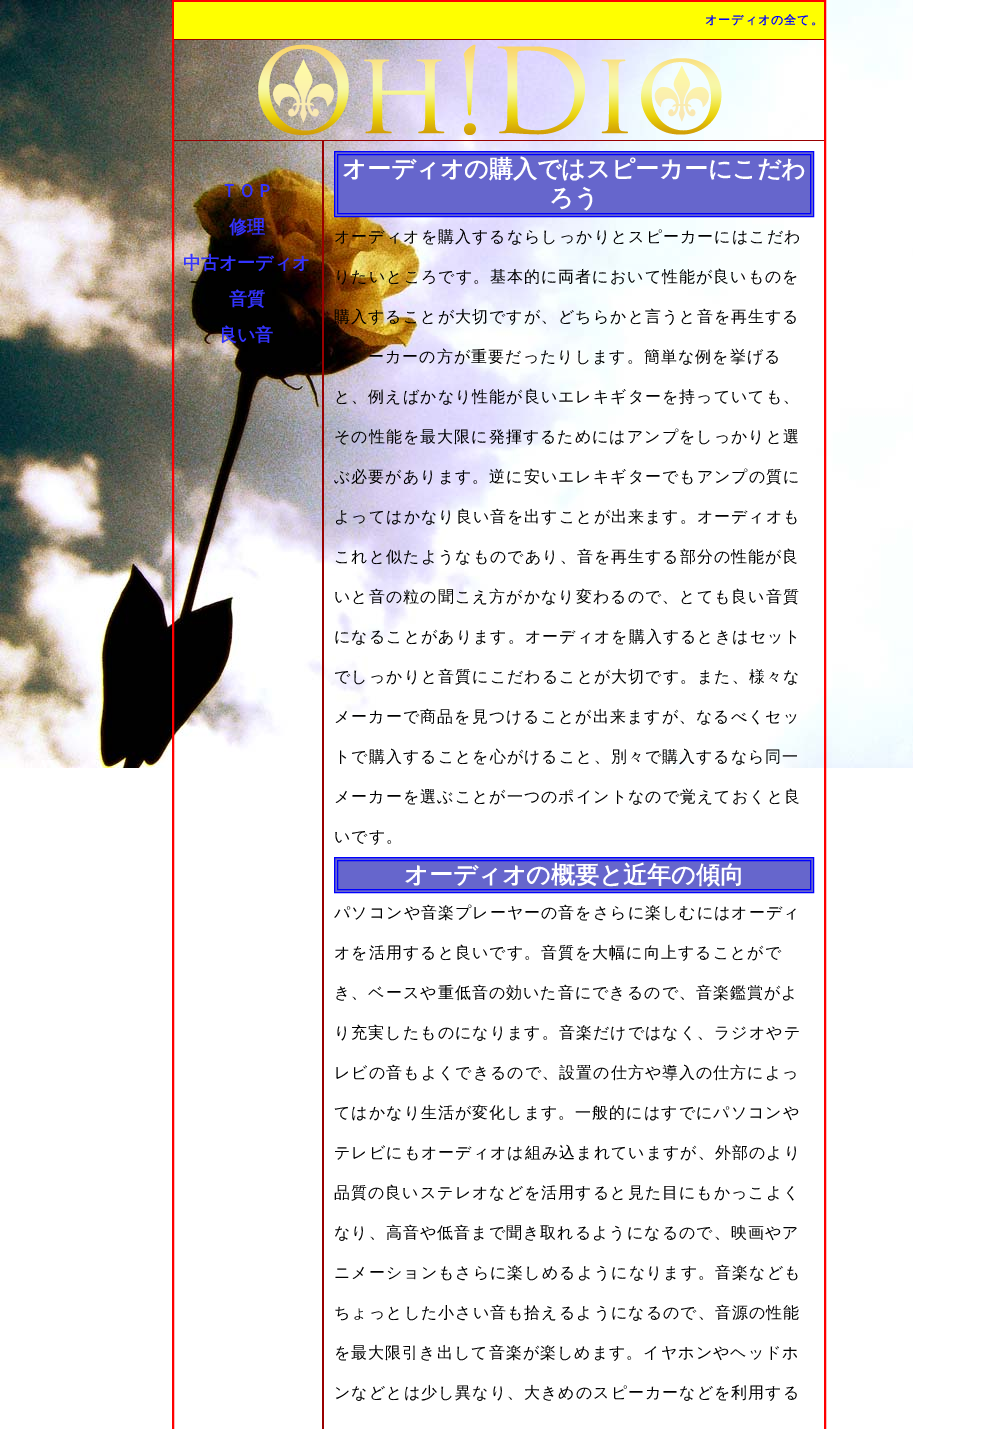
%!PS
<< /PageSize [993 1429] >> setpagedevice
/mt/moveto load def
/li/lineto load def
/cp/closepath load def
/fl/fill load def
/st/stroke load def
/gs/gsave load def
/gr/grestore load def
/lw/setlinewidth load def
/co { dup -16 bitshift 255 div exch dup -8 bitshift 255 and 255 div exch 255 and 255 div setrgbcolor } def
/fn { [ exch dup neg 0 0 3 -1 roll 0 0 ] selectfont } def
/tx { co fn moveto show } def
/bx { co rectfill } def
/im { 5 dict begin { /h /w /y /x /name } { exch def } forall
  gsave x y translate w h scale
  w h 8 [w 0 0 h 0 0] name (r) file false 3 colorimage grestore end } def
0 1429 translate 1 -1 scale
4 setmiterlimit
0 0 993 1429 16#FFFFFF bx
(media/1.raw) 0 0 913 768 im
16#FF0000 co
2 lw
173 1 652 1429 rectstroke
174 2 650 37 16#FFFF00 bx
174 39 650 1 16#990000 bx
174 140 650 1 16#990000 bx
(media/2.raw) 258 44 464 91 im
322 141 2 1288 16#990000 bx
16#6666CC co
334.5 151.5 mt 813.5 151.5 li 813.5 216.5 li 334.5 216.5 li cp gs fl gr
16#0000FF co
1 lw
st
337.5 154.5 473 59 rectstroke
16#6666CC co
334.5 857.5 mt 813.5 857.5 li 813.5 892.5 li 334.5 892.5 li cp gs fl gr
16#0000FF co
st
337.5 860.5 473 29 rectstroke
/WenQuanYiZenHei-Bold 12 fn
705 24 mt 1 0 (オーディオの全て。) ashow
(ＴＯＰ) 220 197 /WenQuanYiZenHei-Bold 18 16#3333FF tx
(修理) 229 233 /WenQuanYiZenHei-Bold 18 16#3333FF tx
(中古オーディオ) 183 269 /WenQuanYiZenHei-Bold 18 16#3333FF tx
(音質) 229 305 /WenQuanYiZenHei-Bold 18 16#3333FF tx
(良い音) 219 341 /WenQuanYiZenHei-Bold 18 16#3333FF tx
(オーディオの購入ではスピーカーにこだわ) 342 177 /WenQuanYiZenHei-Bold 24 16#FFFFFF tx
(ろう) 549 206 /WenQuanYiZenHei-Bold 24 16#FFFFFF tx
/WenQuanYiZenHei-Medium 16 fn
16#000000 co
334 242 mt 1 0 (オーディオを購入するならしっかりとスピーカーにはこだわ) ashow
334 282 mt 1 0 (りたいところです。基本的に両者において性能が良いものを) ashow
334 322 mt 1 0 (購入することが大切ですが、どちらかと言うと音を再生する) ashow
368 362 mt 1 0 (ーカーの方が重要だったりします。簡単な例を挙げる) ashow
334 402 mt 1 0 (と、例えばかなり性能が良いエレキギターを持っていても、) ashow
334 442 mt 1 0 (その性能を最大限に発揮するためにはアンプをしっかりと選) ashow
334 482 mt 1 0 (ぶ必要があります。逆に安いエレキギターでもアンプの質に) ashow
334 522 mt 1 0 (よってはかなり良い音を出すことが出来ます。オーディオも) ashow
334 562 mt 1 0 (これと似たようなものであり、音を再生する部分の性能が良) ashow
334 602 mt 1 0 (いと音の粒の聞こえ方がかなり変わるので、とても良い音質) ashow
334 642 mt 1 0 (になることがあります。オーディオを購入するときはセット) ashow
334 682 mt 1 0 (でしっかりと音質にこだわることが大切です。また、様々な) ashow
334 722 mt 1 0 (メーカーで商品を見つけることが出来ますが、なるべくセッ) ashow
334 762 mt 1 0 (トで購入することを心がけること、別々で購入するなら同一) ashow
334 802 mt 1 0 (メーカーを選ぶことが一つのポイントなので覚えておくと良) ashow
334 842 mt 1 0 (いです。) ashow
(オーディオの概要と近年の傾向) 404 883 /WenQuanYiZenHei-Bold 24 16#FFFFFF tx
/WenQuanYiZenHei-Medium 16 fn
16#000000 co
334 918 mt 1 0 (パソコンや音楽プレーヤーの音をさらに楽しむにはオーディ) ashow
334 958 mt 1 0 (オを活用すると良いです。音質を大幅に向上することがで) ashow
334 998 mt 1 0 (き、ベースや重低音の効いた音にできるので、音楽鑑賞がよ) ashow
334 1038 mt 1 0 (り充実したものになります。音楽だけではなく、ラジオやテ) ashow
334 1078 mt 1 0 (レビの音もよくできるので、設置の仕方や導入の仕方によっ) ashow
334 1118 mt 1 0 (てはかなり生活が変化します。一般的にはすでにパソコンや) ashow
334 1158 mt 1 0 (テレビにもオーディオは組み込まれていますが、外部のより) ashow
334 1198 mt 1 0 (品質の良いステレオなどを活用すると見た目にもかっこよく) ashow
334 1238 mt 1 0 (なり、高音や低音まで聞き取れるようになるので、映画やア) ashow
334 1278 mt 1 0 (ニメーションもさらに楽しめるようになります。音楽なども) ashow
334 1318 mt 1 0 (ちょっとした小さい音も拾えるようになるので、音源の性能) ashow
334 1358 mt 1 0 (を最大限引き出して音楽が楽しめます。イヤホンやヘッドホ) ashow
334 1398 mt 1 0 (ンなどとは少し異なり、大きめのスピーカーなどを利用する) ashow
showpage
